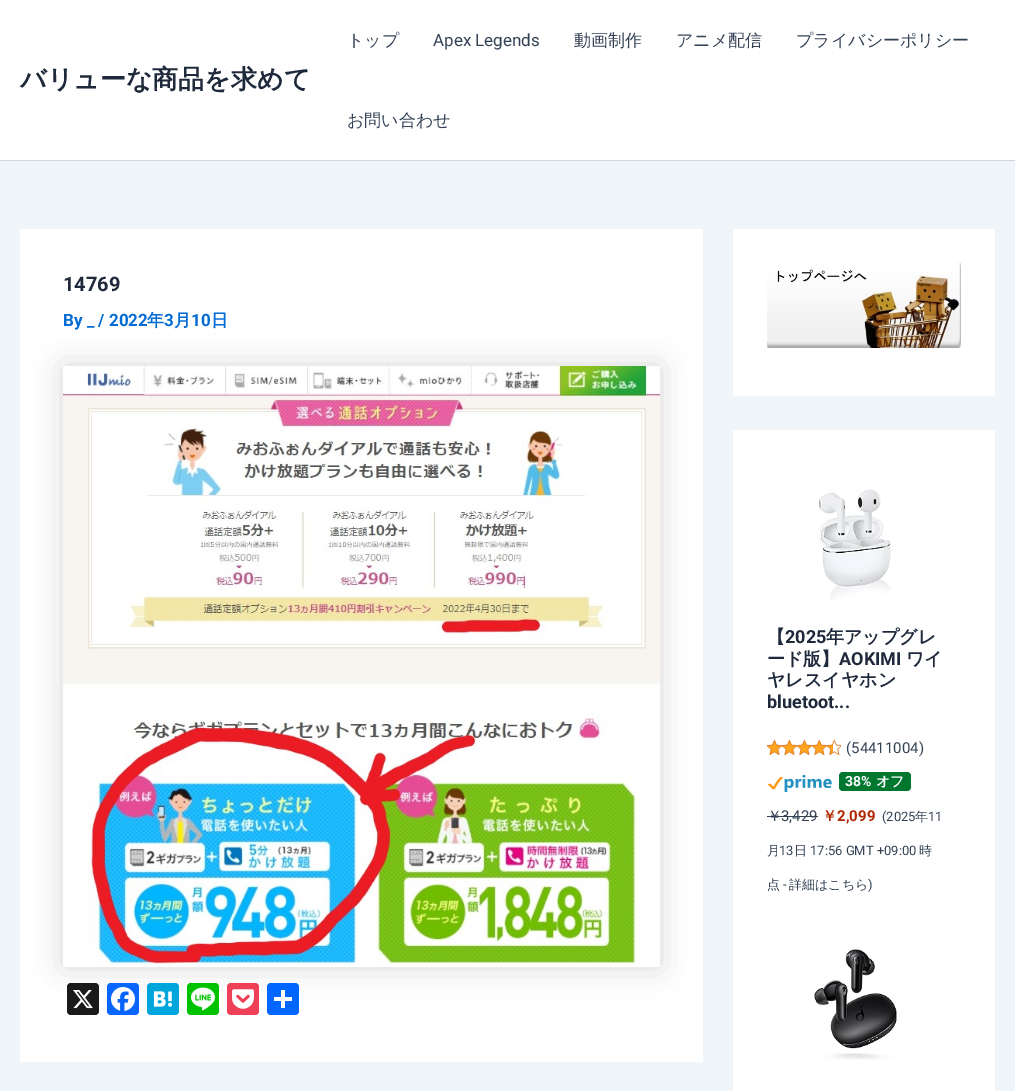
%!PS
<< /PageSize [1015 1091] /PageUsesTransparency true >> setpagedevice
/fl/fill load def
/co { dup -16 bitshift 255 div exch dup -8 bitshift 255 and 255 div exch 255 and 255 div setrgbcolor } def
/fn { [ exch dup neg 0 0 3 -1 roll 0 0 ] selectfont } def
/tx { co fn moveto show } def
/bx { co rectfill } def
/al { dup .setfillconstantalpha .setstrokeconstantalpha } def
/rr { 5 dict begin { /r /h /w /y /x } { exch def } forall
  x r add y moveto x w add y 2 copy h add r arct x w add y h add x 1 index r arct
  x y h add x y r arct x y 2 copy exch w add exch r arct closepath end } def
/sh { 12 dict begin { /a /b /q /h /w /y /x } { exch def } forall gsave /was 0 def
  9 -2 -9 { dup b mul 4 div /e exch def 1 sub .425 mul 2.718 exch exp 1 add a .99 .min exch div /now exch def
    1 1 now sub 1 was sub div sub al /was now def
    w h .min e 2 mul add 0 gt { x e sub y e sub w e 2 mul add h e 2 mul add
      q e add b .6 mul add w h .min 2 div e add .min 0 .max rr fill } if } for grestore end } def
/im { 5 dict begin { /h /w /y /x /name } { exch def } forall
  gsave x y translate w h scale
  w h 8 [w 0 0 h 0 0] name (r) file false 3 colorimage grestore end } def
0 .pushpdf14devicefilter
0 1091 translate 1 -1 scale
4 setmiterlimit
0 0 1015 1091 16#F0F5FA bx
0 0 1015 160 16#FFFFFF bx
0 160 1015 1 16#D1D5DB bx
20 229 683 833 16#FFFFFF bx
16#000000 co
63 366 597 601 0 15 .15 sh
(media/1.raw) 63 366 597 601 im
16#1A1A1A co
67 983 32 32 4 rr fl
(media/2.raw) 73 990 20 19 im
16#0866FF co
107 983 32 32 4 rr fl
(media/3.raw) 111 987 24 24 im
16#00A6DB co
147 983 32 32 4 rr fl
(media/4.raw) 153 991 19 16 im
16#00C300 co
187 983 32 32 4 rr fl
(media/5.raw) 191 987 24 24 im
16#EE4056 co
227 983 32 32 4 rr fl
(media/6.raw) 232 989 22 20 im
16#0166FF co
267 983 32 32 4 rr fl
281 990 4 18 16#FFFFFF bx
274 997 18 4 16#FFFFFF bx
733 229 262 167 16#FFFFFF bx
(media/7.raw) 767 263 194 85 im
733 430 262 661 16#FFFFFF bx
(media/8.raw) 819 489 72 111 im
(media/9.raw) 767 740 74 15 im
(media/10.raw) 767 774 65 18 im
16#00772F co
839 772 72 19 4 rr fl
767 816 51 1 16#334155 bx
(media/11.raw) 814 949 84 111 im
(バリューな商品を求めて) 20 88 /WenQuanYiZenHei-Bold 26 16#1E293B tx
(トップ) 347 46 /WenQuanYiZenHei-Medium 17 16#334155 tx
(Apex Legends) 433 46 /Roboto-Regular 17 16#334155 tx
(動画制作) 574 46 /WenQuanYiZenHei-Medium 17 16#334155 tx
(アニメ配信) 676 46 /WenQuanYiZenHei-Medium 17 16#334155 tx
(プライバシーポリシー) 796 46 /WenQuanYiZenHei-Medium 17 16#334155 tx
(お問い合わせ) 347 126 /WenQuanYiZenHei-Medium 17 16#334155 tx
(14769) 63 291 /Roboto-Bold 20 16#1E293B tx
(By _ / 2022) 63 326 /Roboto-Bold 17 16#046BD2 tx
(年) 147 326 /WenQuanYiZenHei-Bold 17 16#046BD2 tx
(3) 164 326 /Roboto-Bold 17 16#046BD2 tx
(月) 174 326 /WenQuanYiZenHei-Bold 17 16#046BD2 tx
(10) 191 326 /Roboto-Bold 17 16#046BD2 tx
(日) 211 326 /WenQuanYiZenHei-Bold 17 16#046BD2 tx
(【) 767 643 /WenQuanYiZenHei-Bold 18 16#1E293B tx
(2025) 785 643 /Roboto-Bold 18 16#1E293B tx
(年アップグレ) 826 643 /WenQuanYiZenHei-Bold 18 16#1E293B tx
(ード版】) 767 665 /WenQuanYiZenHei-Bold 18 16#1E293B tx
(AOKIMI) 839 665 /Roboto-Bold 18 16#1E293B tx
(ワイ) 906 665 /WenQuanYiZenHei-Bold 18 16#1E293B tx
(ヤレスイヤホン) 767 686 /WenQuanYiZenHei-Bold 18 16#1E293B tx
(bluetoot...) 767 708 /Roboto-Bold 18 16#1E293B tx
(\(54411004\)) 846 753 /Roboto-Regular 15 16#334155 tx
(38%) 845 786 /Roboto-Bold 14 16#FFFFFF tx
(オフ) 876 786 /WenQuanYiZenHei-Bold 14 16#FFFFFF tx
(￥) 767 821 /WenQuanYiZenHei-Medium 15 16#334155 tx
(3,429) 781 821 /Roboto-Regular 15 16#334155 tx
(￥) 822 821 /WenQuanYiZenHei-Bold 15 16#B12704 tx
(2,099) 837 821 /Roboto-Bold 15 16#B12704 tx
(\(2025) 882 821 /Roboto-Regular 13 16#334155 tx
(年) 915 821 /WenQuanYiZenHei-Medium 13 16#334155 tx
(11) 928 821 /Roboto-Regular 13 16#334155 tx
(月) 767 855 /WenQuanYiZenHei-Medium 13 16#334155 tx
(13) 779 855 /Roboto-Regular 13 16#334155 tx
(日) 794 855 /WenQuanYiZenHei-Medium 13 16#334155 tx
(17:56 GMT +09:00) 810 855 /Roboto-Regular 13 16#334155 tx
(時) 919 855 /WenQuanYiZenHei-Medium 13 16#334155 tx
(点) 767 889 /WenQuanYiZenHei-Medium 13 16#334155 tx
(-) 783 889 /Roboto-Regular 13 16#334155 tx
(詳細はこちら) 789 889 /WenQuanYiZenHei-Medium 13 16#334155 tx
(\)) 868 889 /Roboto-Regular 13 16#334155 tx
.poppdf14devicefilter showpage
